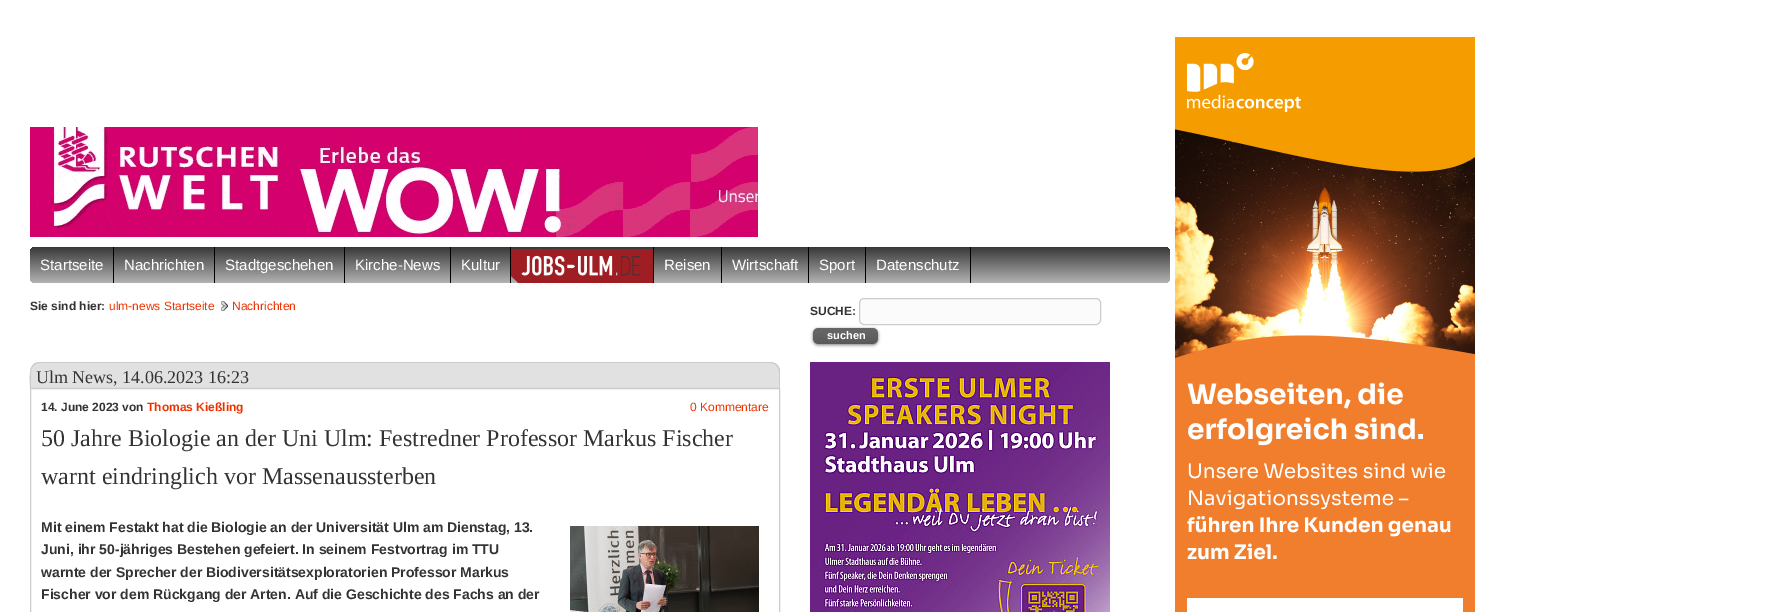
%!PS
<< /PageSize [1770 612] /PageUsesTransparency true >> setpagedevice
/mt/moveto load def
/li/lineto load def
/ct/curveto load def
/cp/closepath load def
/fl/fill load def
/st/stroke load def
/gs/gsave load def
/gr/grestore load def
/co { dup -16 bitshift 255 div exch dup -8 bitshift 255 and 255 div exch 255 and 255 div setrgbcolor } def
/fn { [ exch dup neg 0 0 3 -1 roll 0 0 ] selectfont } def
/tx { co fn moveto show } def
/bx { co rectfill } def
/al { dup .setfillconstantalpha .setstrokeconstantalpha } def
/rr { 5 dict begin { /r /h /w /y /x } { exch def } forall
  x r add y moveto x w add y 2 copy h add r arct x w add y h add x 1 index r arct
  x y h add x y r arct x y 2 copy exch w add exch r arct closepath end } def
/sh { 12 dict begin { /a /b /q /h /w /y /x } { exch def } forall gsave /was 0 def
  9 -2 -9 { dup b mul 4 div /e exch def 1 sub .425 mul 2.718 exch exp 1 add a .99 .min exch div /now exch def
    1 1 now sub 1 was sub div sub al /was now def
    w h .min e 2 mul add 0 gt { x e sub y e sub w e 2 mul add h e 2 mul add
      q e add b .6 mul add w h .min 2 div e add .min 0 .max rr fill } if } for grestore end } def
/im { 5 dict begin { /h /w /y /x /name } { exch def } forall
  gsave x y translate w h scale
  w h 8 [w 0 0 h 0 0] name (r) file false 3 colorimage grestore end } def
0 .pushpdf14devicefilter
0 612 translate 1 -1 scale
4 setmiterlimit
0 0 1770 612 16#FFFFFF bx
(media/1.raw) 30 127 728 110 im
(media/2.raw) 1175 37 300 575 im
gs 30 247 1140 36 5 rr clip newpath
<< /ShadingType 2 /ColorSpace /DeviceRGB /Coords [600 247 600 283] /Extend [true true] /Function << /FunctionType 2 /Domain [0 1] /C0 [.22 .22 .22] /C1 [.702 .702 .702] /N 1 >> >> shfill gr
113 247 1 36 16#000000 bx
214 247 1 36 16#000000 bx
344 247 1 36 16#000000 bx
450 247 1 36 16#000000 bx
510 247 1 36 16#000000 bx
653 247 1 36 16#000000 bx
(media/3.raw) 511 249 142 34 im
721 247 1 36 16#000000 bx
808 247 1 36 16#000000 bx
865 247 1 36 16#000000 bx
970 247 1 36 16#000000 bx
(media/4.raw) 221 301 7 10 im
16#FBFBFB co
859.5 298.5 241 26 4.5 rr gs fl gr
16#CCCCCC co
st
16#000000 co
813 329 65 16 5 1.5 .5 sh
16#333333 co
813 328 65 16 5 rr fl
(media/5.raw) 813 328 65 16 im
(media/6.raw) 30 363 750 25 im
16#CCCCCC co
40 362 mt 770 362 li 776 362 780 366 780 372 ct 780 388 li 30 388 li 30 380 27 362 40 362 ct cp 40 363 mt 770 363 li 775 363 779 367 779 372 ct 779 388 li 31 388 li 31 372 li 31 367 35 363 40 363 ct cp eofill
30.5 388.5 749 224 rectstroke
(media/7.raw) 570 526 189 86 im
(media/8.raw) 810 362 300 250 im
(Startseite) 40 270 /LiberationSans-Regular 15 16#FFFFFF tx
(Nachrichten) 124 270 /LiberationSans-Regular 15 16#FFFFFF tx
(Stadtgeschehen) 225 270 /LiberationSans-Regular 15 16#FFFFFF tx
(Kirche-News) 355 270 /LiberationSans-Regular 15 16#FFFFFF tx
(Kultur) 461 270 /LiberationSans-Regular 15 16#FFFFFF tx
(Reisen) 664 270 /LiberationSans-Regular 15 16#FFFFFF tx
(Wirtschaft) 732 270 /LiberationSans-Regular 15 16#FFFFFF tx
(Sport) 819 270 /LiberationSans-Regular 15 16#FFFFFF tx
(Datenschutz) 876 270 /LiberationSans-Regular 15 16#FFFFFF tx
(Sie sind hier:) 30 310 /LiberationSans-Bold 12 16#333333 tx
(ulm-news Startseite) 109 310 /LiberationSans-Regular 12 16#EE3300 tx
(Nachrichten) 232 310 /LiberationSans-Regular 12 16#EE3300 tx
(SUCHE:) 810 315 /LiberationSans-Bold 12 16#333333 tx
(suchen) 827 339 /LiberationSans-Bold 11 16#FFFFFF tx
(Ulm News, 14.06.2023 16:23) 36 383 /LiberationSerif-Regular 18 16#333333 tx
(14. June 2023 von) 41 411 /LiberationSans-Bold 12 16#333333 tx
(Thomas Kießling) 147 411 /LiberationSans-Bold 12 16#EE3300 tx
(0 Kommentare) 690 411 /LiberationSans-Regular 12 16#EE3300 tx
(50 Jahre Biologie an der Uni Ulm: Festredner Professor Markus Fischer) 41 446 /LiberationSerif-Regular 24 16#333333 tx
(warnt eindringlich vor Massenaussterben) 41 484 /LiberationSerif-Regular 24 16#333333 tx
(Mit einem Festakt hat die Biologie an der Universität Ulm am Dienstag, 13.) 41 532 /LiberationSans-Bold 14 16#333333 tx
(Juni, ihr 50-jähriges Bestehen gefeiert. In seinem Festvortrag im TTU) 41 554 /LiberationSans-Bold 14 16#333333 tx
(warnte der Sprecher der Biodiversitätsexploratorien Professor Markus) 41 577 /LiberationSans-Bold 14 16#333333 tx
(Fischer vor dem Rückgang der Arten. Auf die Geschichte des Fachs an der) 41 599 /LiberationSans-Bold 14 16#333333 tx
.poppdf14devicefilter showpage
